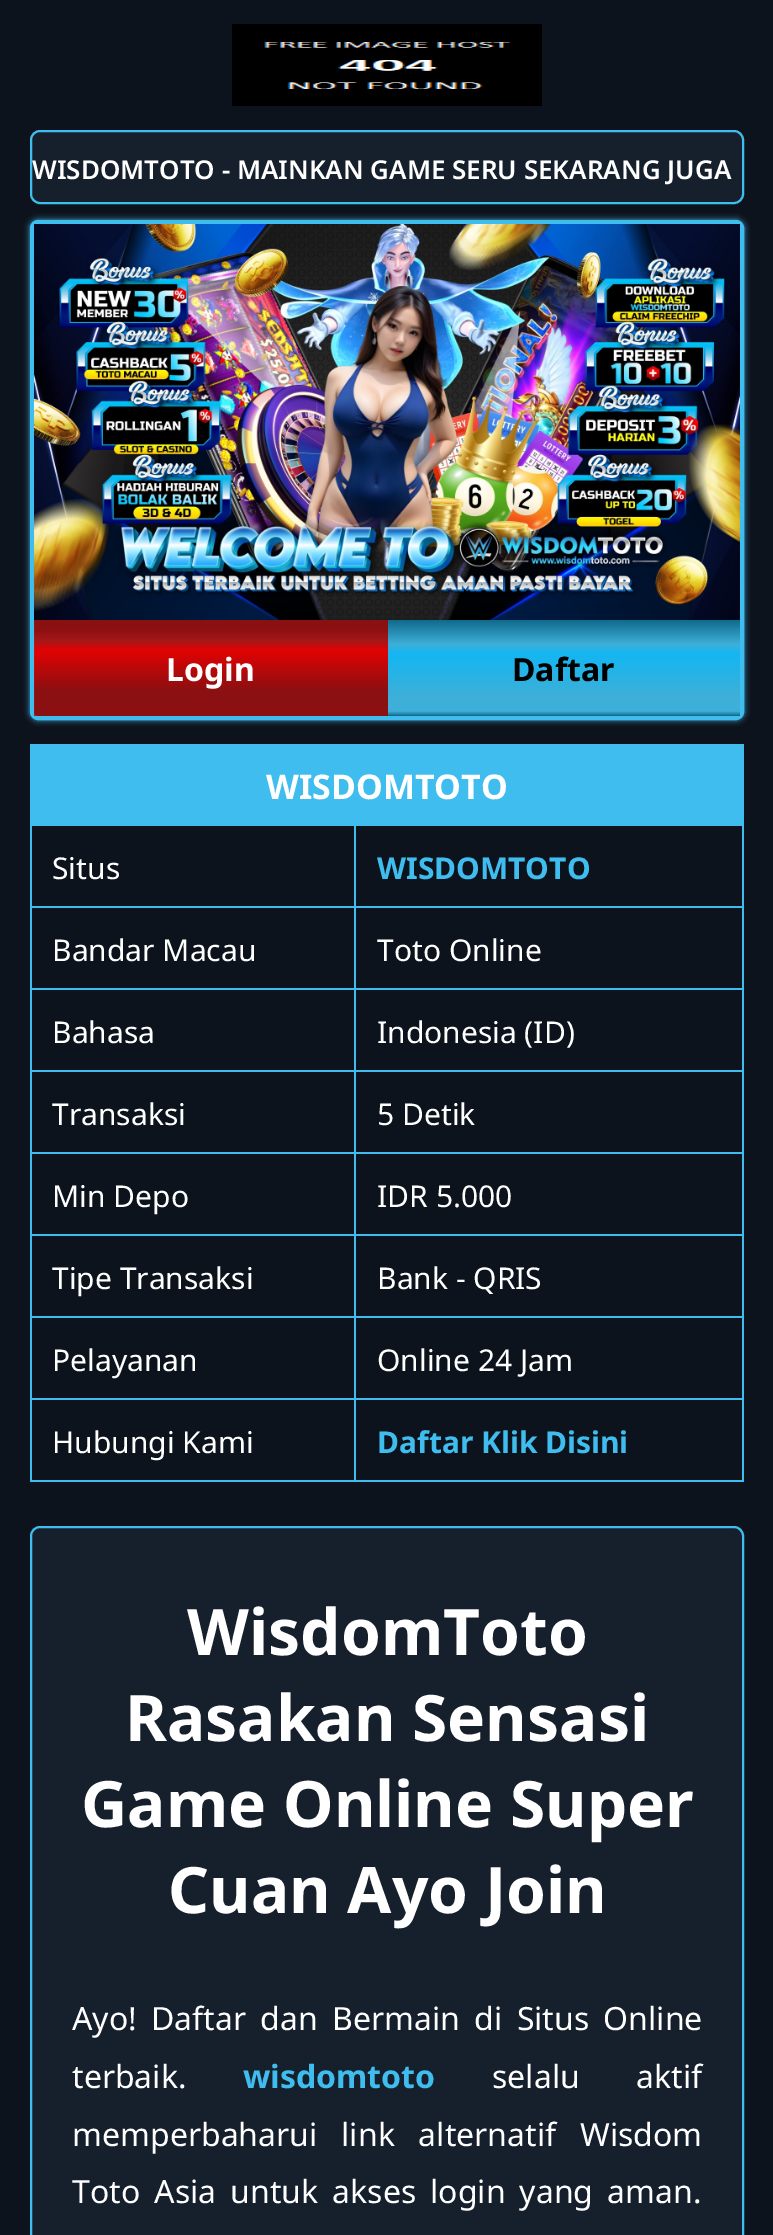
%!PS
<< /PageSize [773 2235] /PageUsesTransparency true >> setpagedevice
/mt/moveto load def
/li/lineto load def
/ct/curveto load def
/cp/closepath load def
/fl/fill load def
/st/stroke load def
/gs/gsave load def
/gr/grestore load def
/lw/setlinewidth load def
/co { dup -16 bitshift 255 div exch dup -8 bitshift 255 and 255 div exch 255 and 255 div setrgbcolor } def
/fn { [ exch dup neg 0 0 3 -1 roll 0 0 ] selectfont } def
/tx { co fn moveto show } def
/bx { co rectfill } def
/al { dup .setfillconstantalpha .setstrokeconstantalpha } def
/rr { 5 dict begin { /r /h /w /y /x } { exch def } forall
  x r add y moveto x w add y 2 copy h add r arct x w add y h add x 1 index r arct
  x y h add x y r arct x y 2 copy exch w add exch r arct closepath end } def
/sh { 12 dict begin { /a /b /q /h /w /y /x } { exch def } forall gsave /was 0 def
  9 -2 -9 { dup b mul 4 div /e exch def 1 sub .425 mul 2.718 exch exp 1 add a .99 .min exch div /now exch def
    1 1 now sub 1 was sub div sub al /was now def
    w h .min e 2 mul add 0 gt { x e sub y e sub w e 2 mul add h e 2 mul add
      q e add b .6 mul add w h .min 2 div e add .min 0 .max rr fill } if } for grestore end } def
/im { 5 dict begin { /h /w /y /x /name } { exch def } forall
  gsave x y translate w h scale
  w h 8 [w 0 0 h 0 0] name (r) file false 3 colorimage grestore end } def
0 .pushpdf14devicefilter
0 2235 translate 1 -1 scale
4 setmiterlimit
0 0 773 2235 16#0D131C bx
(media/1.raw) 232 24 310 82 im
16#161F2C co
31 131 712 72 9 rr gs fl gr
16#3FBDEF co
2 lw
st
gs
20 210 mt 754 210 li 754 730 li 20 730 li cp 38 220 mt 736 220 li 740.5 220 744 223.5 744 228 ct 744 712 li 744 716.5 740.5 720 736 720 ct 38 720 li 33.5 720 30 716.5 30 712 ct 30 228 li 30 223.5 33.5 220 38 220 ct cp eoclip newpath
30 220 714 500 8 3 1 sh
gr
4 lw
32 222 710 496 6 rr st
(media/2.raw) 34 224 706 396 im
0.85 al
gs 34 620 mt 388 620 li 388 716 li 34 716 li cp clip newpath
<< /ShadingType 2 /ColorSpace /DeviceRGB /Coords [211 620 211 716] /Extend [true true] /Function << /FunctionType 3 /Domain [0 1] /Functions [<< /FunctionType 2 /Domain [0 1] /C0 [.627 .059 .059] /C1 [.627 .059 .059] /N 1 >> << /FunctionType 2 /Domain [0 1] /C0 [.627 .059 .059] /C1 [.753 .094 .094] /N 1 >> << /FunctionType 2 /Domain [0 1] /C0 [.753 .094 .094] /C1 [1 0 0] /N 1 >> << /FunctionType 2 /Domain [0 1] /C0 [1 0 0] /C1 [1 0 0] /N 1 >> << /FunctionType 2 /Domain [0 1] /C0 [1 0 0] /C1 [.627 .059 .059] /N 1 >> << /FunctionType 2 /Domain [0 1] /C0 [.627 .059 .059] /C1 [.627 .059 .059] /N 1 >>] /Bounds [.09 .22 .3 .35 .74] /Encode [0 1 0 1 0 1 0 1 0 1 0 1] >> >> shfill gr
1 al
gs 388 620 mt 740 620 li 740 716 li 388 716 li cp clip newpath
<< /ShadingType 2 /ColorSpace /DeviceRGB /Coords [564 620 564 716] /Extend [true true] /Function << /FunctionType 3 /Domain [0 1] /Functions [<< /FunctionType 2 /Domain [0 1] /C0 [.063 .416 .545] /C1 [.243 .686 .847] /N 1 >> << /FunctionType 2 /Domain [0 1] /C0 [.243 .686 .847] /C1 [.075 .714 .949] /N 1 >> << /FunctionType 2 /Domain [0 1] /C0 [.075 .714 .949] /C1 [.243 .686 .847] /N 1 >> << /FunctionType 2 /Domain [0 1] /C0 [.243 .686 .847] /C1 [.243 .686 .847] /N 1 >> << /FunctionType 2 /Domain [0 1] /C0 [.243 .686 .847] /C1 [.063 .416 .545] /N 1 >>] /Bounds [.25 .35 .8 .95] /Encode [0 1 0 1 0 1 0 1 0 1] >> >> shfill gr
32 746 712 80 16#3FBDEF bx
30 744 714 2 16#3FBDEF bx
354 906 390 2 16#3FBDEF bx
354 988 390 2 16#3FBDEF bx
354 1070 390 2 16#3FBDEF bx
354 1152 390 2 16#3FBDEF bx
354 1234 390 2 16#3FBDEF bx
354 1316 390 2 16#3FBDEF bx
354 1398 390 2 16#3FBDEF bx
742 1398 2 84 16#3FBDEF bx
354 1480 390 2 16#3FBDEF bx
354 1398 2 84 16#3FBDEF bx
30 1398 326 2 16#3FBDEF bx
354 1316 2 84 16#3FBDEF bx
30 1316 326 2 16#3FBDEF bx
354 1234 2 84 16#3FBDEF bx
30 1234 326 2 16#3FBDEF bx
354 1152 2 84 16#3FBDEF bx
30 1152 326 2 16#3FBDEF bx
354 1070 2 84 16#3FBDEF bx
30 1070 326 2 16#3FBDEF bx
354 988 2 84 16#3FBDEF bx
30 988 326 2 16#3FBDEF bx
354 906 2 84 16#3FBDEF bx
30 906 326 2 16#3FBDEF bx
30 1480 326 2 16#3FBDEF bx
30 1398 2 84 16#3FBDEF bx
30 1316 2 84 16#3FBDEF bx
30 1234 2 84 16#3FBDEF bx
30 1152 2 84 16#3FBDEF bx
30 1070 2 84 16#3FBDEF bx
30 988 2 84 16#3FBDEF bx
30 906 2 84 16#3FBDEF bx
30 824 2 84 16#3FBDEF bx
30 744 2 82 16#3FBDEF bx
354 824 2 84 16#3FBDEF bx
742 1316 2 84 16#3FBDEF bx
742 1234 2 84 16#3FBDEF bx
742 1152 2 84 16#3FBDEF bx
742 1070 2 84 16#3FBDEF bx
742 988 2 84 16#3FBDEF bx
742 824 2 166 16#3FBDEF bx
16#161F2C co
31 1527 712 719 9 rr gs fl gr
16#3FBDEF co
2 lw
st
(WISDOMTOTO - MAINKAN GAME SERU SEKARANG JUGA) 32 179 /NotoSans-SemiBold 26 16#FFFFFF tx
(Login) 166 681 /NotoSans-Bold 32 16#FFFFFF tx
(Daftar) 512 681 /NotoSans-Bold 32 16#000000 tx
(WISDOMTOTO) 266 799 /NotoSans-Bold 34 16#FFFFFF tx
(Situs) 52 879 /NotoSans-Regular 30 16#FFFFFF tx
(WISDOMTOTO) 377 879 /NotoSans-Bold 30 16#3FBDEF tx
(Bandar Macau) 52 961 /NotoSans-Regular 30 16#FFFFFF tx
(Toto Online) 377 961 /NotoSans-Regular 30 16#FFFFFF tx
(Bahasa) 52 1043 /NotoSans-Regular 30 16#FFFFFF tx
(Indonesia \(ID\)) 377 1043 /NotoSans-Regular 30 16#FFFFFF tx
(Transaksi) 52 1125 /NotoSans-Regular 30 16#FFFFFF tx
(5 Detik) 377 1125 /NotoSans-Regular 30 16#FFFFFF tx
(Min Depo) 52 1207 /NotoSans-Regular 30 16#FFFFFF tx
(IDR 5.000) 377 1207 /NotoSans-Regular 30 16#FFFFFF tx
(Tipe Transaksi) 52 1289 /NotoSans-Regular 30 16#FFFFFF tx
(Bank - QRIS) 377 1289 /NotoSans-Regular 30 16#FFFFFF tx
(Pelayanan) 52 1371 /NotoSans-Regular 30 16#FFFFFF tx
(Online 24 Jam) 377 1371 /NotoSans-Regular 30 16#FFFFFF tx
(Hubungi Kami) 52 1453 /NotoSans-Regular 30 16#FFFFFF tx
(Daftar Klik Disini) 377 1453 /NotoSans-Bold 30 16#3FBDEF tx
(WisdomToto) 187 1655 /NotoSans-Bold 64 16#FFFFFF tx
(Rasakan Sensasi) 125 1741 /NotoSans-Bold 64 16#FFFFFF tx
(Game Online Super) 81 1827 /NotoSans-Bold 64 16#FFFFFF tx
(Cuan Ayo Join) 168 1913 /NotoSans-Bold 64 16#FFFFFF tx
/NotoSans-Regular 32 fn
72 2030 mt 6 0 32 (Ayo! Daftar dan Bermain di Situs Online) widthshow
(terbaik.) 72 2088 /NotoSans-Regular 32 16#FFFFFF tx
(wisdomtoto) 243 2088 /NotoSans-Bold 32 16#3FBDEF tx
/NotoSans-Regular 32 fn
16#FFFFFF co
492 2088 mt 48 0 32 (selalu aktif) widthshow
72 2146 mt 15.5 0 32 (memperbaharui link alternatif Wisdom) widthshow
72 2203 mt 5.75 0 32 (Toto Asia untuk akses login yang aman.) widthshow
.poppdf14devicefilter showpage
